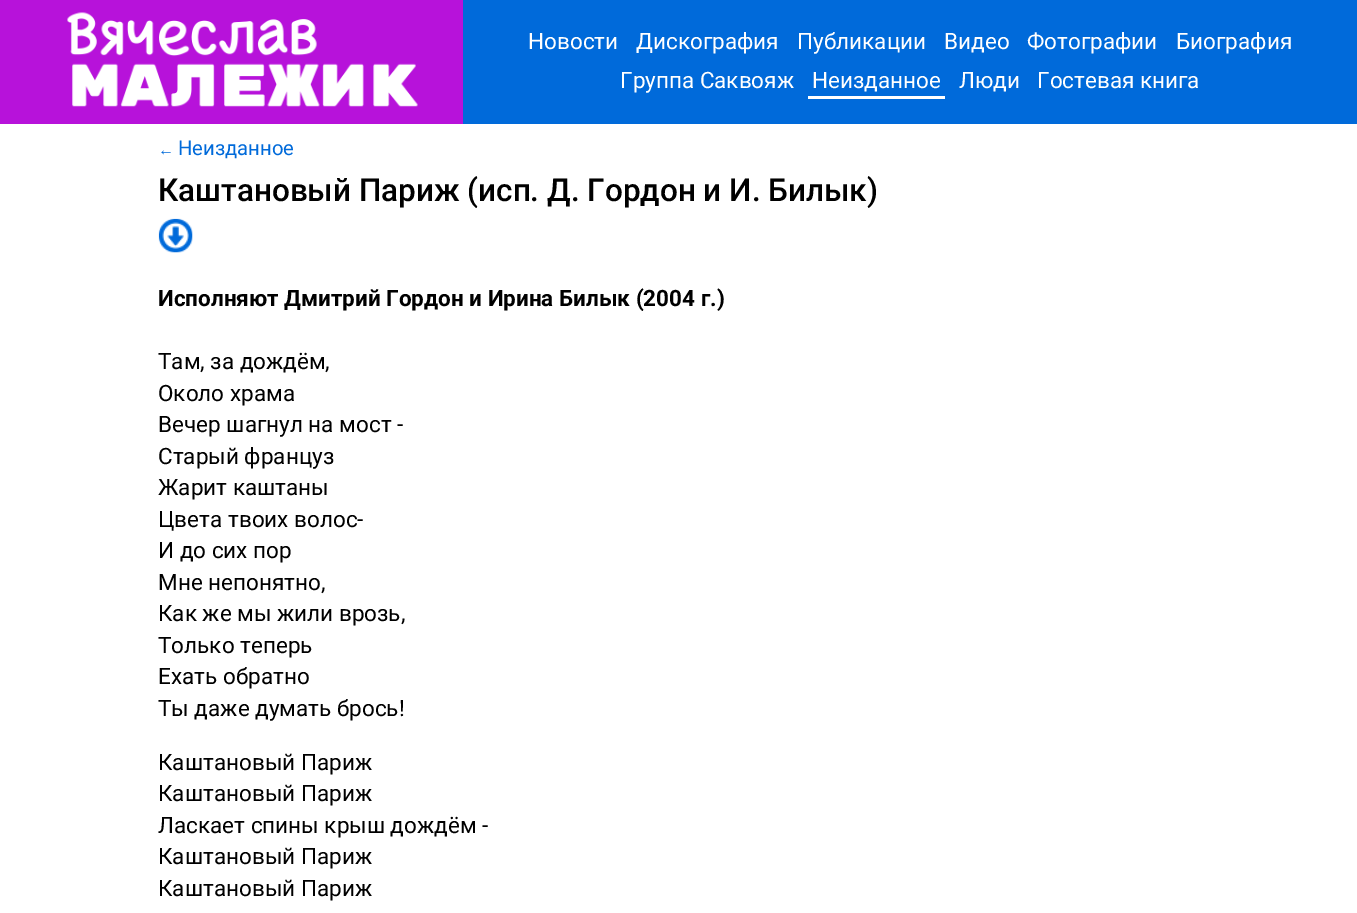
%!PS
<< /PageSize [1357 913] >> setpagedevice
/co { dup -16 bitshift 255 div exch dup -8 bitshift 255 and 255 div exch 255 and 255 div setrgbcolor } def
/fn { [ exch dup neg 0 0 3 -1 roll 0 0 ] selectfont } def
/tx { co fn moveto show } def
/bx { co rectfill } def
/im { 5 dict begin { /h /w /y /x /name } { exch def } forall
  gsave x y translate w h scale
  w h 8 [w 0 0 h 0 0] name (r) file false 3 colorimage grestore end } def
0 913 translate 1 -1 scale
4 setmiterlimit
0 0 1357 913 16#FFFFFF bx
463 0 894 124 16#006ADA bx
0 0 463 124 16#B712DA bx
(media/1.raw) 67 12 351 95 im
808 96 137 3 16#FFFFFF bx
(media/2.raw) 158 218 35 35 im
(Новости) 528 49 /Roboto-Regular 22.5 16#FFFFFF tx
(Дискография) 636 49 /Roboto-Regular 22.5 16#FFFFFF tx
(Публикации) 797 49 /Roboto-Regular 22.5 16#FFFFFF tx
(Видео) 944 49 /Roboto-Regular 22.5 16#FFFFFF tx
(Фотографии) 1027 49 /Roboto-Regular 22.5 16#FFFFFF tx
(Биография) 1176 49 /Roboto-Regular 22.5 16#FFFFFF tx
(Группа Саквояж) 620 88 /Roboto-Regular 22.5 16#FFFFFF tx
(Неизданное) 812 88 /Roboto-Regular 22.5 16#FFFFFF tx
(Люди) 959 88 /Roboto-Regular 22.5 16#FFFFFF tx
(Гостевая книга) 1037 88 /Roboto-Regular 22.5 16#FFFFFF tx
(←) 158 155 /LiberationSans-Regular 16 16#006ADA tx
(Неизданное) 178 155 /Roboto-Regular 20.25 16#006ADA tx
(Каштановый Париж \(исп. Д. Гордон и И. Билык\)) 158 201 /Roboto-Medium 31.5 16#000000 tx
(Исполняют Дмитрий Гордон и Ирина Билык \(2004 г.\)) 158 306 /Roboto-Bold 22.5 16#000000 tx
(Там, за дождём,) 158 369 /Roboto-Regular 22.5 16#000000 tx
(Около храма) 158 401 /Roboto-Regular 22.5 16#000000 tx
(Вечер шагнул на мост -) 158 432 /Roboto-Regular 22.5 16#000000 tx
(Старый француз) 158 464 /Roboto-Regular 22.5 16#000000 tx
(Жарит каштаны) 158 495 /Roboto-Regular 22.5 16#000000 tx
(Цвета твоих волос-) 158 527 /Roboto-Regular 22.5 16#000000 tx
(И до сих пор) 158 558 /Roboto-Regular 22.5 16#000000 tx
(Мне непонятно,) 158 590 /Roboto-Regular 22.5 16#000000 tx
(Как же мы жили врозь,) 158 621 /Roboto-Regular 22.5 16#000000 tx
(Только теперь) 158 653 /Roboto-Regular 22.5 16#000000 tx
(Ехать обратно) 158 684 /Roboto-Regular 22.5 16#000000 tx
(Ты даже думать брось!) 158 716 /Roboto-Regular 22.5 16#000000 tx
(Каштановый Париж) 158 770 /Roboto-Regular 22.5 16#000000 tx
(Каштановый Париж) 158 801 /Roboto-Regular 22.5 16#000000 tx
(Ласкает спины крыш дождём -) 158 833 /Roboto-Regular 22.5 16#000000 tx
(Каштановый Париж) 158 864 /Roboto-Regular 22.5 16#000000 tx
(Каштановый Париж) 158 896 /Roboto-Regular 22.5 16#000000 tx
showpage
